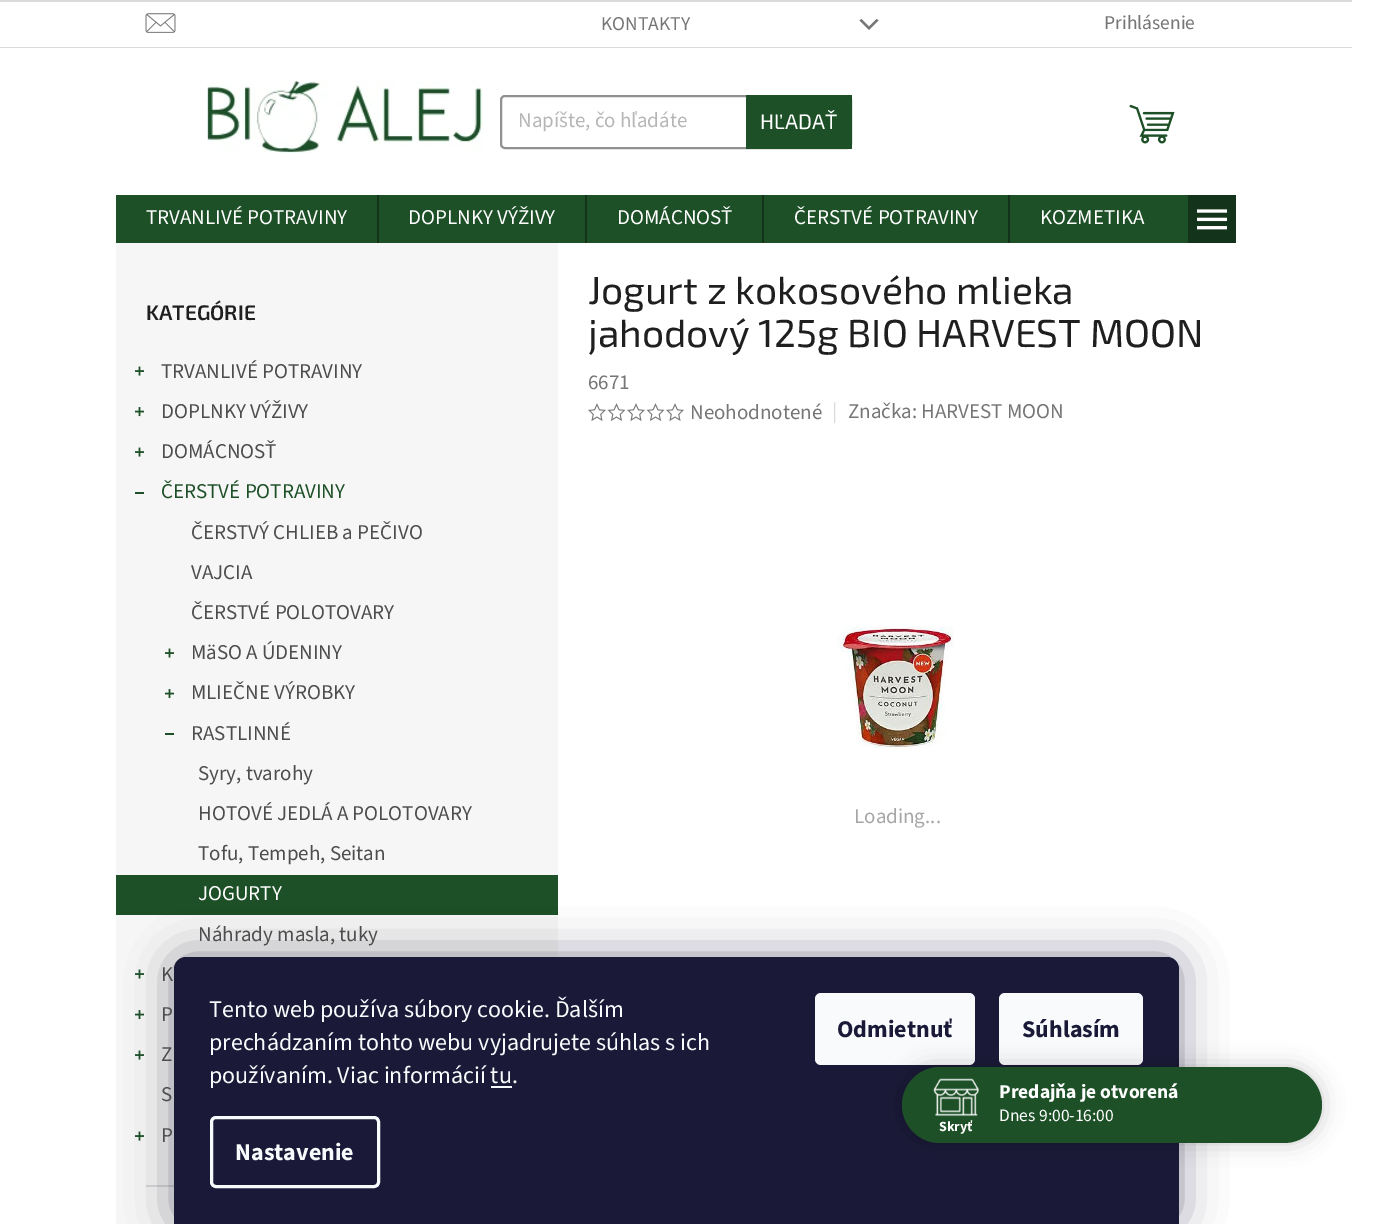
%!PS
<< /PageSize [1374 1224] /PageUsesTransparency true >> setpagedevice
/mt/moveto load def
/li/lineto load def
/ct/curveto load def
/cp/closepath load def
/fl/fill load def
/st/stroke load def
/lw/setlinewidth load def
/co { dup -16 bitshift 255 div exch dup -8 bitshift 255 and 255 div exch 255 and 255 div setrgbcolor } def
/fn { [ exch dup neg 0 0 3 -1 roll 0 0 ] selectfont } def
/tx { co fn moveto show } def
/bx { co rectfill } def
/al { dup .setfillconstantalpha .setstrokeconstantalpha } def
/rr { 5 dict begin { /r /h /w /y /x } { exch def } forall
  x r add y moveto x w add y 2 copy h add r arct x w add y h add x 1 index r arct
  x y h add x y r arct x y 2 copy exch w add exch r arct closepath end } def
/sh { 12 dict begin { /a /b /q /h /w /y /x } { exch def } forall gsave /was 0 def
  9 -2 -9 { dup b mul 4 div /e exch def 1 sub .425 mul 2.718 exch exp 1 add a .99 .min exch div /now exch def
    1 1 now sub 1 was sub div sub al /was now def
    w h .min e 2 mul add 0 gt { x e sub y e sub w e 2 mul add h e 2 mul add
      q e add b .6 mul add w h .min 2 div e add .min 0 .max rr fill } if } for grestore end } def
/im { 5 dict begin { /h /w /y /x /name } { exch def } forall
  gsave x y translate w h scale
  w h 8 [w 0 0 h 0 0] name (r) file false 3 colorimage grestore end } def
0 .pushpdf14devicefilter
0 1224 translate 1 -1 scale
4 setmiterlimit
0 0 1374 1224 16#FFFFFF bx
0 0 1352 2 16#DADADA bx
0 47 1352 1 16#DADADA bx
(media/1.raw) 145 13 31 20 im
16#767676 co
859.5 20.5 mt 861.5 19 li 869 26.5 li 876.5 19 li 878.5 20.5 li 869 30 li cp fl
(media/2.raw) 207 81 276 72 im
16#919191 co
2 lw
501 96 350 52 4 rr st
746 95 106 54 16#1D5027 bx
(media/3.raw) 1129 104 46 40 im
116 195 1072 48 16#1D5027 bx
377 195 2 48 16#13341A bx
585 195 2 48 16#13341A bx
762 195 2 48 16#13341A bx
1008 195 2 48 16#13341A bx
1188 195 48 48 16#13341A bx
(media/4.raw) 1197 209 30 21 im
116 243 442 981 16#F6F6F6 bx
146 1185 28 2 16#DADADA bx
(media/5.raw) 135 366 9 10 im
(media/6.raw) 135 407 9 10 im
(media/5.raw) 135 447 9 10 im
135 492 9 2 16#1D5027 bx
(media/5.raw) 165 648 9 10 im
(media/6.raw) 165 689 9 10 im
165 733 9 2 16#1D5027 bx
116 875 442 40 16#1D5027 bx
(media/5.raw) 135 969 9 10 im
(media/6.raw) 135 1010 9 10 im
(media/5.raw) 135 1050 9 10 im
(media/5.raw) 135 1131 9 10 im
(media/7.raw) 588 403 18 18 im
(media/8.raw) 607 403 19 18 im
(media/7.raw) 627 403 18 18 im
(media/8.raw) 646 403 19 18 im
(media/7.raw) 666 403 18 18 im
(media/9.raw) 837 626 118 123 im
16#1B1939 co
174 957 1005 267 12 22.5 .5 sh
16#1A1937 co
186 957 mt 1167 957 li 1173.5 957 1179 962.5 1179 969 ct 1179 1224 li 174 1224 li 174 969 li 174 962.5 179.5 957 186 957 ct cp fl
491 1086 21 2 16#F8FAFB bx
3 lw
211.5 1117.5 167 69 4.5 rr st
815 993 160 72 6 rr fl
999 993 144 72 6 rr fl
16#000000 co
902 1067 420 76 38 11 .2 sh
16#1D5027 co
902 1067 420 76 38 rr fl
(media/10.raw) 933 1078 46 39 im
(KONTAKTY) 601 30 /SourceSans3-Regular 19.5 16#767676 tx
(Prihlásenie) 1104 29 /SourceSans3-Regular 19.5 16#767676 tx
(Napíšte, čo hľadáte) 518 127 /SourceSans3-Regular 21 16#B6B6B6 tx
(HĽADAŤ) 760 129 /Exo2-Regular 21 16#FFFFFF tx
(TRVANLIVÉ POTRAVINY) 146 224 /SourceSans3-Regular 21 16#FFFFFF tx
(DOPLNKY VÝŽIVY) 408 224 /SourceSans3-Regular 21 16#FFFFFF tx
(DOMÁCNOSŤ) 617 224 /SourceSans3-Regular 21 16#FFFFFF tx
(ČERSTVÉ POTRAVINY) 794 224 /SourceSans3-Regular 21 16#FFFFFF tx
(KOZMETIKA) 1040 224 /SourceSans3-Regular 21 16#FFFFFF tx
(KATEGÓRIE) 146 320 /Exo2-SemiBold 21 16#1F1F1F tx
(TRVANLIVÉ POTRAVINY) 161 378 /SourceSans3-Regular 21 16#4D4D4D tx
(DOPLNKY VÝŽIVY) 161 418 /SourceSans3-Regular 21 16#4D4D4D tx
(DOMÁCNOSŤ) 161 458 /SourceSans3-Regular 21 16#4D4D4D tx
(ČERSTVÉ POTRAVINY) 161 498 /SourceSans3-Regular 21 16#1D5027 tx
(ČERSTVÝ CHLIEB a PEČIVO) 191 539 /SourceSans3-Regular 21 16#4D4D4D tx
(VAJCIA) 191 579 /SourceSans3-Regular 21 16#4D4D4D tx
(ČERSTVÉ POLOTOVARY) 191 619 /SourceSans3-Regular 21 16#4D4D4D tx
(MäSO A ÚDENINY) 191 659 /SourceSans3-Regular 21 16#4D4D4D tx
(MLIEČNE VÝROBKY) 191 699 /SourceSans3-Regular 21 16#4D4D4D tx
(RASTLINNÉ) 191 740 /SourceSans3-Regular 21 16#4D4D4D tx
(Syry, tvarohy) 198 780 /SourceSans3-Regular 21 16#4D4D4D tx
(HOTOVÉ JEDLÁ A POLOTOVARY) 198 820 /SourceSans3-Regular 21 16#4D4D4D tx
(Tofu, Tempeh, Seitan) 198 860 /SourceSans3-Regular 21 16#4D4D4D tx
(JOGURTY) 198 900 /SourceSans3-Regular 21 16#FFFFFF tx
(Náhrady masla, tuky) 198 941 /SourceSans3-Regular 21 16#4D4D4D tx
(K) 161 981 /SourceSans3-Regular 21 16#4D4D4D tx
(P) 161 1021 /SourceSans3-Regular 21 16#4D4D4D tx
(Z) 161 1061 /SourceSans3-Regular 21 16#4D4D4D tx
(S) 161 1101 /SourceSans3-Regular 21 16#4D4D4D tx
(P) 161 1142 /SourceSans3-Regular 21 16#4D4D4D tx
(Jogurt z kokosového mlieka) 588 304 /Exo2-Regular 39 16#1F1F1F tx
(jahodový 125g BIO HARVEST MOON) 588 347 /Exo2-Regular 39 16#1F1F1F tx
(6671) 588 389 /SourceSans3-Regular 21 16#767676 tx
(Neohodnotené) 690 419 /SourceSans3-Regular 21 16#767676 tx
(|) 832 418 /SourceSans3-Regular 21 16#DADADA tx
(Značka: HARVEST MOON) 848 418 /SourceSans3-Regular 21 16#767676 tx
(Loading...) 854 823 /SourceSans3-Regular 21 16#A6A6A6 tx
(Tento web používa súbory cookie. Ďalším) 209 1017 /SourceSans3-Regular 24 16#F8FAFB tx
(prechádzaním tohto webu vyjadrujete súhlas s ich) 209 1050 /SourceSans3-Regular 24 16#F8FAFB tx
(používaním. Viac informácií tu.) 209 1083 /SourceSans3-Regular 24 16#F8FAFB tx
(Nastavenie) 235 1160 /SourceSans3-Bold 24 16#F8FAFB tx
(Odmietnuť) 837 1037 /SourceSans3-Bold 24 16#1A1937 tx
(Súhlasím) 1022 1037 /SourceSans3-Bold 24 16#1A1937 tx
(Predajňa je otvorená) 999 1098 /SourceSans3-Bold 19.5 16#FFFFFF tx
(Dnes 9:00-16:00) 999 1121 /SourceSans3-Regular 17.5 16#FFFFFF tx
(Skryť) 939 1131 /SourceSans3-Bold 14 16#FFFFFF tx
.poppdf14devicefilter showpage
